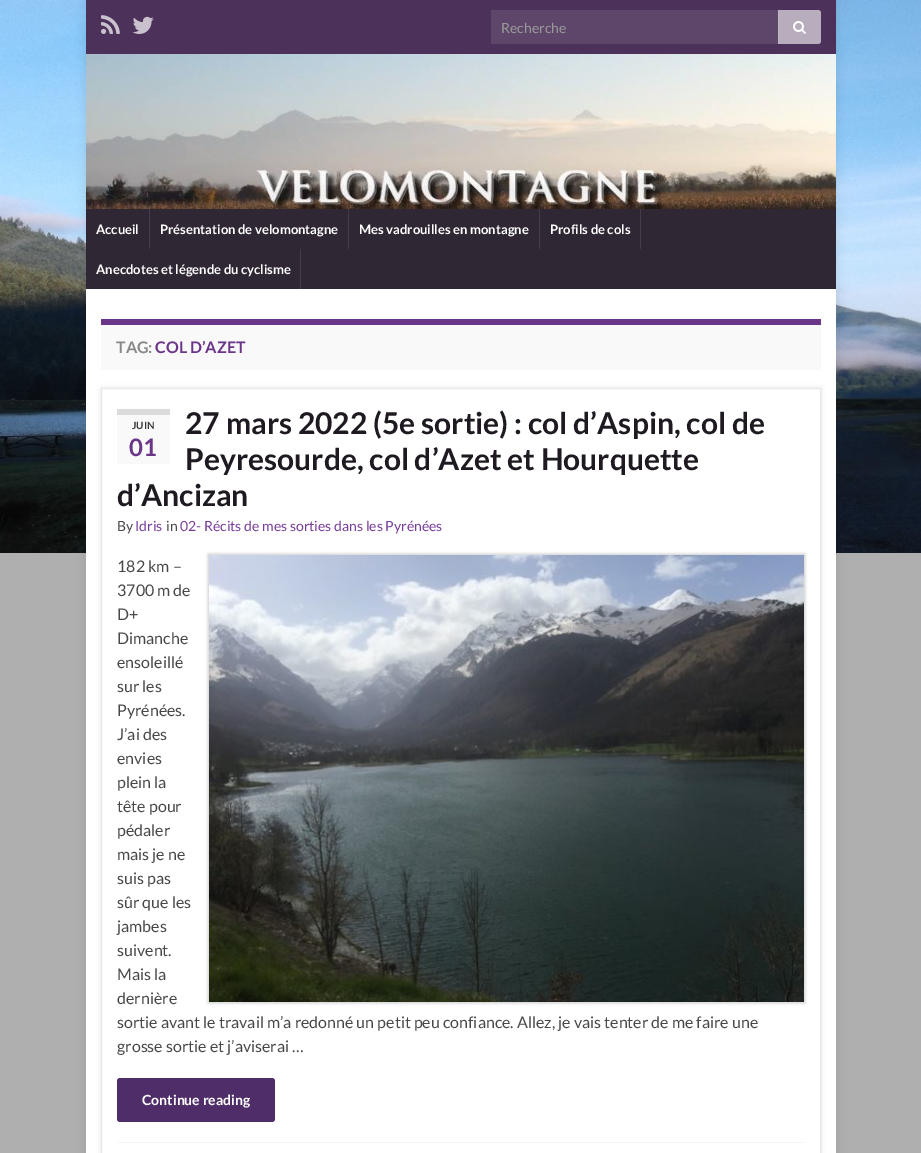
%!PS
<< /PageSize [921 1153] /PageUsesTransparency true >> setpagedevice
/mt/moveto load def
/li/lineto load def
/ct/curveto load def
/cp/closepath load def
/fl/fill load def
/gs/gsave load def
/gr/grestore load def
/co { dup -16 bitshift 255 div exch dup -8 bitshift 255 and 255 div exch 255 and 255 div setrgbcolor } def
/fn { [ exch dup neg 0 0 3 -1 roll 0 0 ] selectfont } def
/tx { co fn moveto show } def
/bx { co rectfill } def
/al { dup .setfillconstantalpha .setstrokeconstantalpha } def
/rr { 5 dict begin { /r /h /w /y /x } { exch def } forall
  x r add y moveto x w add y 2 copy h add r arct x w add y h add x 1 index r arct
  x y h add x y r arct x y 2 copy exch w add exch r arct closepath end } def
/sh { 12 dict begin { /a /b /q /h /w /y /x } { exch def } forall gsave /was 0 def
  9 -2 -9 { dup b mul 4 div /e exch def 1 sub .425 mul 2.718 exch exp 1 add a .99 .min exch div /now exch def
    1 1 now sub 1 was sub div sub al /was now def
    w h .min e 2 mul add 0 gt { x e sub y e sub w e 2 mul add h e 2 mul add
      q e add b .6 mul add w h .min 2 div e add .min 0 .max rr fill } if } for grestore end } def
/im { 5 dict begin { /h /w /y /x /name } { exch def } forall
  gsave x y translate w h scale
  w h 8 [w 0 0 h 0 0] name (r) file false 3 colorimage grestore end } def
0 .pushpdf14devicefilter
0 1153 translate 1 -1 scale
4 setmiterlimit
0 0 921 1153 16#AFAFAF bx
(media/1.raw) 0 0 921 553 im
16#000000 co
86 0 750 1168 0 5 .1 sh
86 0 750 54 16#4C315A bx
(media/2.raw) 101 15 19 19 im
(media/3.raw) 132 16 22 18 im
491 10 288 34 16#5E466B bx
0.6 al
16#FFFFFF co
778 10 mt 818 10 li 819.5 10 821 11.5 821 13 ct 821 41 li 821 42.5 819.5 44 818 44 ct 778 44 li cp fl
1 al
(media/4.raw) 793 21 13 13 im
(media/5.raw) 86 54 750 155 im
86 209 750 80 16#2F2733 bx
149 209 1 40 16#443D47 bx
348 209 1 40 16#443D47 bx
539 209 1 40 16#443D47 bx
640 209 1 40 16#443D47 bx
300 249 1 40 16#443D47 bx
86 289 750 864 16#FFFFFF bx
101 325 720 45 16#F9F9F9 bx
101 319 720 6 16#6B3589 bx
gs
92 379 mt 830 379 li 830 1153 li 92 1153 li cp 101 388 mt 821 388 li 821 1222 li 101 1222 li cp eoclip newpath
16#000000 co
101 388 720 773 0 2.5 .1 sh
gr
16#E9E8E3 co
101.5 388.5 719 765 rectstroke
117 415 53 49 16#F9F9F9 bx
117 409 53 6 16#DBDBDB bx
16#000000 co
208 554 597 449 0 1.5 .2 sh
(media/6.raw) 209 555 595 447 im
16#4F2D69 co
117 1078 158 44 3 rr fl
117 1142 688 1 16#F5F5F5 bx
(Recherche) 501 33 /Lato-Regular 14 16#999999 tx
(Accueil) 96 234 /Lato-Bold 13 16#FFFFFF tx
(Présentation de velomontagne) 160 234 /Lato-Bold 13 16#FFFFFF tx
(Mes vadrouilles en montagne) 359 234 /Lato-Bold 13 16#FFFFFF tx
(Profils de cols) 550 234 /Lato-Bold 13 16#FFFFFF tx
(Anecdotes et légende du cyclisme) 96 274 /Lato-Bold 13 16#FFFFFF tx
(TAG:) 116 353 /Lato-Bold 16 16#888888 tx
(COL D’AZET) 155 353 /Lato-Bold 16 16#6B3589 tx
(27 mars 2022 \(5e sortie\) : col d’Aspin, col de) 185 434 /Lato-Bold 30 16#1F1A22 tx
(Peyresourde, col d’Azet et Hourquette) 185 470 /Lato-Bold 30 16#1F1A22 tx
(d’Ancizan) 117 506 /Lato-Bold 30 16#1F1A22 tx
(JUIN) 132 429 /Lato-Bold 10 16#3B383D tx
(01) 129 456 /Lato-Bold 24 16#6B3589 tx
(By) 117 531 /Lato-Regular 14 16#4A474B tx
(Idris) 135 531 /Lato-Regular 14 16#783D98 tx
(in) 166 531 /Lato-Regular 14 16#4A474B tx
(02- Récits de mes sorties dans les Pyrénées) 180 531 /Lato-Regular 14 16#783D98 tx
(182 km –) 117 572 /Lato-Regular 16 16#4A474B tx
(3700 m de) 117 596 /Lato-Regular 16 16#4A474B tx
(D+) 117 620 /Lato-Regular 16 16#4A474B tx
(Dimanche) 117 644 /Lato-Regular 16 16#4A474B tx
(ensoleillé) 117 668 /Lato-Regular 16 16#4A474B tx
(sur les) 117 692 /Lato-Regular 16 16#4A474B tx
(Pyrénées.) 117 716 /Lato-Regular 16 16#4A474B tx
(J’ai des) 117 740 /Lato-Regular 16 16#4A474B tx
(envies) 117 764 /Lato-Regular 16 16#4A474B tx
(plein la) 117 788 /Lato-Regular 16 16#4A474B tx
(tête pour) 117 812 /Lato-Regular 16 16#4A474B tx
(pédaler) 117 836 /Lato-Regular 16 16#4A474B tx
(mais je ne) 117 860 /Lato-Regular 16 16#4A474B tx
(suis pas) 117 884 /Lato-Regular 16 16#4A474B tx
(sûr que les) 117 908 /Lato-Regular 16 16#4A474B tx
(jambes) 117 932 /Lato-Regular 16 16#4A474B tx
(suivent.) 117 956 /Lato-Regular 16 16#4A474B tx
(Mais la) 117 980 /Lato-Regular 16 16#4A474B tx
(dernière) 117 1004 /Lato-Regular 16 16#4A474B tx
(sortie avant le travail m’a redonné un petit peu confiance. Allez, je vais tenter de me faire une) 117 1028 /Lato-Regular 16 16#4A474B tx
(grosse sortie et j’aviserai …) 117 1052 /Lato-Regular 16 16#4A474B tx
(Continue reading) 142 1105 /Lato-Bold 14 16#FFFFFF tx
.poppdf14devicefilter showpage
